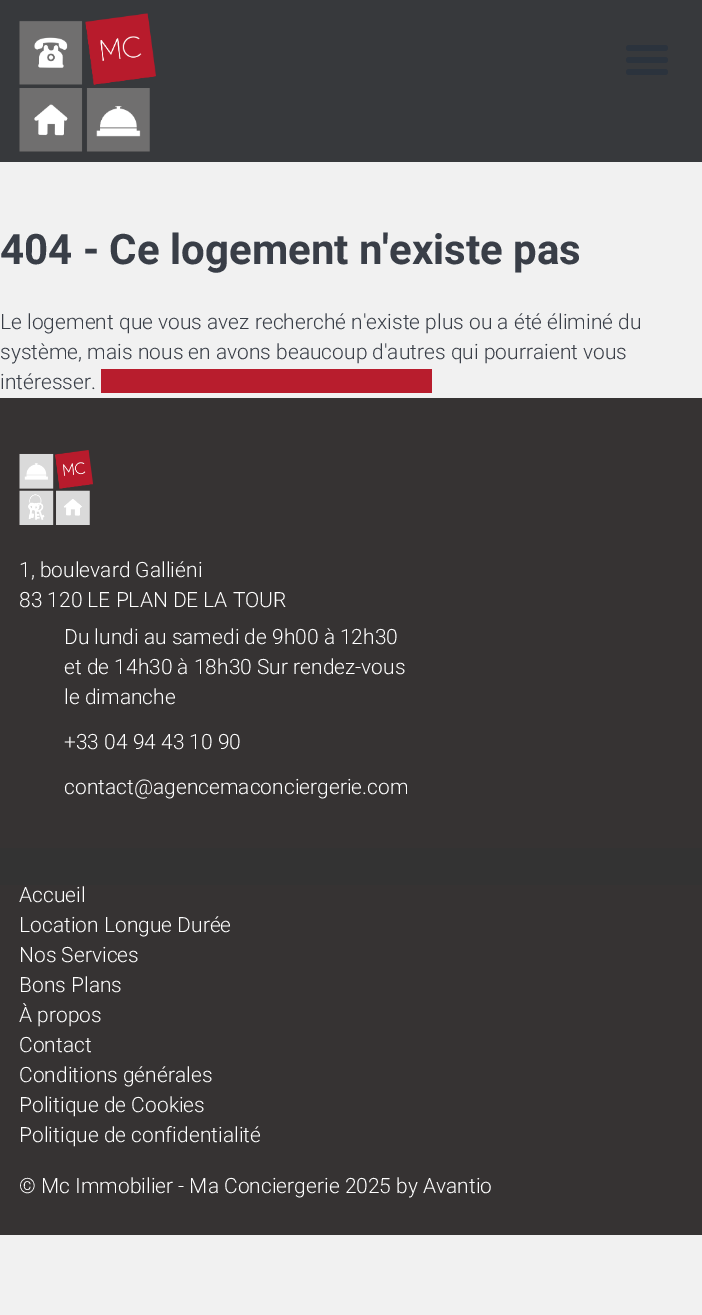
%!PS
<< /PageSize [702 1315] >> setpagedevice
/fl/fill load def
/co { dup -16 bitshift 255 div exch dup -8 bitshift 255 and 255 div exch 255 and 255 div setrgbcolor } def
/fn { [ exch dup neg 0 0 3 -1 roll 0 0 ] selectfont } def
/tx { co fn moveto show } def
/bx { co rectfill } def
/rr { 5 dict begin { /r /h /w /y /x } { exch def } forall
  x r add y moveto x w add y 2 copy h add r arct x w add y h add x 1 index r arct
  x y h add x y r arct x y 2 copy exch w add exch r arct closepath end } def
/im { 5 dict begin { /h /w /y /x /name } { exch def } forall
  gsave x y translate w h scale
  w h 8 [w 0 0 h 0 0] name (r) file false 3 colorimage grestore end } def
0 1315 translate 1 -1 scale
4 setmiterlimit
0 0 702 1315 16#F1F1F1 bx
0 0 702 162 16#37393C bx
(media/1.raw) 19 13 137 139 im
16#2B333D co
626 45 42 6 3 rr fl
626 57 42 6 3 rr fl
626 69 42 6 3 rr fl
101 369 331 24 16#B81D2D bx
0 885 702 350 16#363333 bx
0 398 702 450 16#363333 bx
0 848 702 37 16#333333 bx
(media/2.raw) 19 450 74 75 im
(404 - Ce logement n'existe pas) 0 264 /Roboto-Bold 42 16#393E47 tx
(Le logement que vous avez recherché n'existe plus ou a été éliminé du) 0 329 /Roboto-Light 21 16#393E47 tx
(système, mais nous en avons beaucoup d'autres qui pourraient vous) 0 359 /Roboto-Light 21 16#393E47 tx
(intéresser.) 0 389 /Roboto-Light 21 16#393E47 tx
(1, boulevard Galliéni) 19 577 /Roboto-Light 21 16#FFFFFF tx
(83 120 LE PLAN DE LA TOUR) 19 607 /Roboto-Light 21 16#FFFFFF tx
(Du lundi au samedi de 9h00 à 12h30) 64 644 /Roboto-Light 21 16#FFFFFF tx
(et de 14h30 à 18h30 Sur rendez-vous) 64 674 /Roboto-Light 21 16#FFFFFF tx
(le dimanche) 64 704 /Roboto-Light 21 16#FFFFFF tx
(+33 04 94 43 10 90) 64 749 /Roboto-Light 21 16#FFFFFF tx
(contact@agencemaconciergerie.com) 64 794 /Roboto-Light 21 16#FFFFFF tx
(Accueil) 19 902 /Roboto-Light 21 16#FFFFFF tx
(Location Longue Durée) 19 932 /Roboto-Light 21 16#FFFFFF tx
(Nos Services) 19 962 /Roboto-Light 21 16#FFFFFF tx
(Bons Plans) 19 992 /Roboto-Light 21 16#FFFFFF tx
(À propos) 19 1022 /Roboto-Light 21 16#FFFFFF tx
(Contact) 19 1052 /Roboto-Light 21 16#FFFFFF tx
(Conditions générales) 19 1082 /Roboto-Light 21 16#FFFFFF tx
(Politique de Cookies) 19 1112 /Roboto-Light 21 16#FFFFFF tx
(Politique de confidentialité) 19 1142 /Roboto-Light 21 16#FFFFFF tx
(© Mc Immobilier - Ma Conciergerie 2025 by Avantio) 19 1193 /Roboto-Light 21 16#FFFFFF tx
showpage
